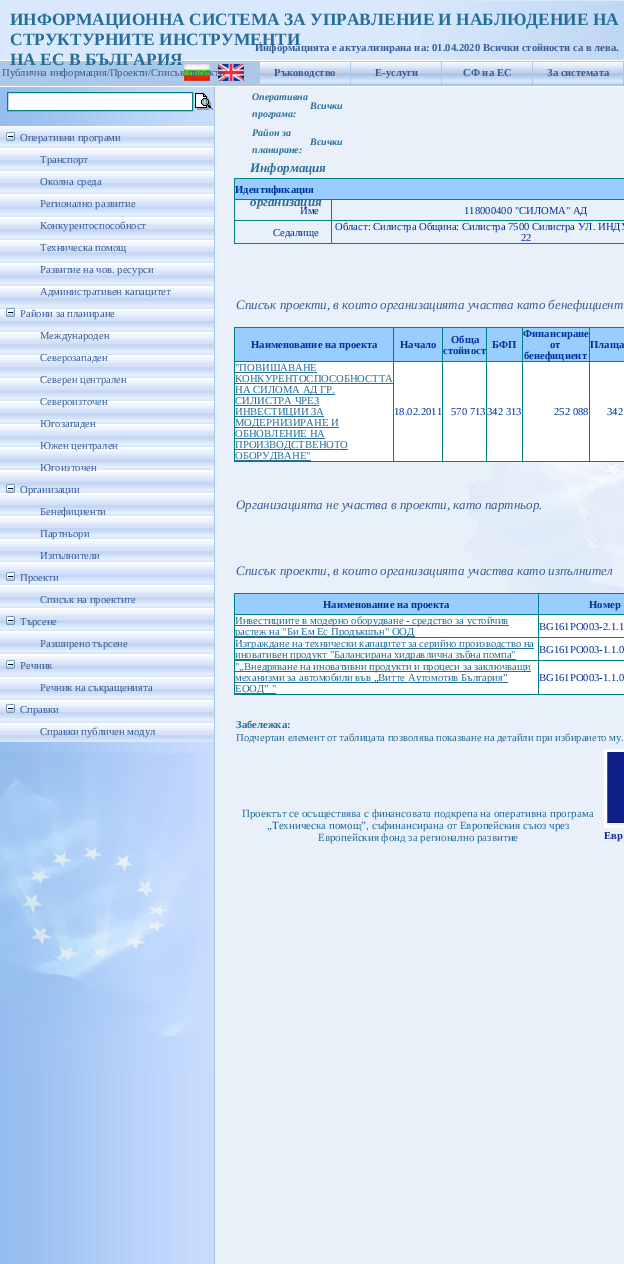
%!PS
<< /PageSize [624 1264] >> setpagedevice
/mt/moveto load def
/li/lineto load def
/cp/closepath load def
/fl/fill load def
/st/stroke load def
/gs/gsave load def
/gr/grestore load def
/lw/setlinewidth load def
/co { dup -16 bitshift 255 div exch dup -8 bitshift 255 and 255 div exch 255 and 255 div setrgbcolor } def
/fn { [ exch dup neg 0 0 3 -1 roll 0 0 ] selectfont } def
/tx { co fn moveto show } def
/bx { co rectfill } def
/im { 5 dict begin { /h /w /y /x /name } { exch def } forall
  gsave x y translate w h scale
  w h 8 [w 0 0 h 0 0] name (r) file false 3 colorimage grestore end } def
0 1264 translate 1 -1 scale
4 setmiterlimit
0 0 624 1264 16#FFFFFF bx
(media/1.raw) 0 87 624 1177 im
0 0 624 60 16#DAE8FD bx
(media/2.raw) 421 1 203 59 im
0 61 624 25 16#ABC8E9 bx
(media/3.raw) 184 64 26 17 im
(media/4.raw) 218 64 26 17 im
(media/5.raw) 260 62 90 22 im
(media/5.raw) 351 62 90 22 im
(media/5.raw) 442 62 90 22 im
(media/5.raw) 533 62 90 22 im
16#FFFFFF co
7.5 92.5 mt 192.5 92.5 li 192.5 110.5 li 7.5 110.5 li cp gs fl gr
16#008080 co
st
(media/6.raw) 195 93 18 17 im
215 115 7 645 16#E8F0F9 bx
(media/7.raw) 453 326 171 267 im
209 115 5 645 16#C7DBFE bx
214 115 1 645 16#A8C7EC bx
(media/8.raw) 0 126 214 616 im
(media/9.raw) 6 132 9 9 im
(media/9.raw) 6 308 9 9 im
(media/9.raw) 6 484 9 9 im
(media/9.raw) 6 572 9 9 im
(media/9.raw) 6 616 9 9 im
(media/9.raw) 6 660 9 9 im
(media/9.raw) 6 704 9 9 im
(media/10.raw) 0 753 210 319 im
234 178 390 1 16#008080 bx
234 243 390 1 16#008080 bx
234 178 1 66 16#008080 bx
235 179 389 20 16#99CCFF bx
331 199 293 1 16#008080 bx
331 220 293 1 16#008080 bx
331 220 1 24 16#008080 bx
234 220 98 1 16#008080 bx
331 199 1 22 16#008080 bx
234 327 390 1 16#008080 bx
234 461 390 1 16#008080 bx
234 327 1 135 16#008080 bx
235 328 389 33 16#99CCFF bx
589 361 35 1 16#008080 bx
589 361 1 101 16#008080 bx
522 361 68 1 16#008080 bx
522 361 1 101 16#008080 bx
486 361 37 1 16#008080 bx
486 361 1 101 16#008080 bx
442 361 45 1 16#008080 bx
442 361 1 101 16#008080 bx
393 361 50 1 16#008080 bx
393 361 1 101 16#008080 bx
234 361 160 1 16#008080 bx
393 327 1 35 16#008080 bx
442 327 1 35 16#008080 bx
486 327 1 35 16#008080 bx
522 327 1 35 16#008080 bx
589 327 1 35 16#008080 bx
235 362 158 99 16#FFFFFF bx
235 372 82 1 16#246E99 bx
235 383 158 1 16#246E99 bx
235 394 100 1 16#246E99 bx
235 405 84 1 16#246E99 bx
235 416 89 1 16#246E99 bx
235 427 104 1 16#246E99 bx
235 438 90 1 16#246E99 bx
235 449 113 1 16#246E99 bx
235 460 76 1 16#246E99 bx
394 362 48 99 16#FFFFFF bx
443 362 43 99 16#FFFFFF bx
487 362 35 99 16#FFFFFF bx
523 362 66 99 16#FFFFFF bx
590 362 34 99 16#FFFFFF bx
234 593 390 1 16#008080 bx
234 694 390 1 16#008080 bx
234 593 1 102 16#008080 bx
235 594 389 20 16#99CCFF bx
538 614 86 1 16#008080 bx
538 637 86 1 16#008080 bx
538 660 86 1 16#008080 bx
538 660 1 35 16#008080 bx
234 660 305 1 16#008080 bx
538 637 1 24 16#008080 bx
234 637 305 1 16#008080 bx
538 614 1 24 16#008080 bx
234 614 305 1 16#008080 bx
538 593 1 22 16#008080 bx
235 615 303 22 16#FFFFFF bx
235 625 274 1 16#246E99 bx
235 636 180 1 16#246E99 bx
539 615 85 22 16#FFFFFF bx
235 638 303 22 16#FFFFFF bx
235 648 299 1 16#246E99 bx
235 659 281 1 16#246E99 bx
539 638 85 22 16#FFFFFF bx
235 661 303 33 16#FFFFFF bx
235 671 296 1 16#246E99 bx
235 682 273 1 16#246E99 bx
235 693 41 1 16#246E99 bx
539 661 85 33 16#FFFFFF bx
3 lw
605.5 750.5 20 76 rectstroke
(media/11.raw) 607 752 17 71 im
(ИНФОРМАЦИОННА СИСТЕМА ЗА УПРАВЛЕНИЕ И НАБЛЮДЕНИЕ НА) 10 25 /LiberationSerif-Bold 17.35 16#246E99 tx
(СТРУКТУРНИТЕ ИНСТРУМЕНТИ) 10 45 /LiberationSerif-Bold 17.35 16#246E99 tx
(НА ЕС В БЪЛГАРИЯ) 10 65 /LiberationSerif-Bold 17.35 16#246E99 tx
(Информацията е актуализирана на: 01.04.2020 Всички стойности са в лева.) 255 51 /LiberationSerif-Bold 10.65 16#365D98 tx
168 61 456 1 16#A8C7EC bx
623 61 1 24 16#A8C7EC bx
168 84 456 1 16#A8C7EC bx
168 61 1 24 16#A8C7EC bx
(Публична информация/Проекти/Списък проекти/) 2 76 /LiberationSerif-Regular 10.65 16#365D98 tx
259 61 1 24 16#A8C7EC bx
(Ръководство) 274 76 /LiberationSerif-Bold 10.65 16#365D98 tx
350 61 1 24 16#A8C7EC bx
(Е-услуги) 375 76 /LiberationSerif-Bold 10.65 16#365D98 tx
441 61 1 24 16#A8C7EC bx
(СФ на ЕС) 463 76 /LiberationSerif-Bold 10.65 16#365D98 tx
532 61 1 24 16#A8C7EC bx
(За системата) 547 76 /LiberationSerif-Bold 10.65 16#365D98 tx
(Оперативни програми) 20 141 /LiberationSerif-Regular 10.65 16#365D98 tx
(Транспорт) 40 163 /LiberationSerif-Regular 10.65 16#365D98 tx
(Околна среда) 40 185 /LiberationSerif-Regular 10.65 16#365D98 tx
(Регионално развитие) 40 207 /LiberationSerif-Regular 10.65 16#365D98 tx
(Конкурентоспособност) 40 229 /LiberationSerif-Regular 10.65 16#365D98 tx
(Техническа помощ) 40 251 /LiberationSerif-Regular 10.65 16#365D98 tx
(Развитие на чов. ресурси) 40 273 /LiberationSerif-Regular 10.65 16#365D98 tx
(Административен капацитет) 40 295 /LiberationSerif-Regular 10.65 16#365D98 tx
(Райони за планиране) 20 317 /LiberationSerif-Regular 10.65 16#365D98 tx
(Международен) 40 339 /LiberationSerif-Regular 10.65 16#365D98 tx
(Северозападен) 40 361 /LiberationSerif-Regular 10.65 16#365D98 tx
(Северен централен) 40 383 /LiberationSerif-Regular 10.65 16#365D98 tx
(Североизточен) 40 405 /LiberationSerif-Regular 10.65 16#365D98 tx
(Югозападен) 40 427 /LiberationSerif-Regular 10.65 16#365D98 tx
(Южен централен) 40 449 /LiberationSerif-Regular 10.65 16#365D98 tx
(Югоизточен) 40 471 /LiberationSerif-Regular 10.65 16#365D98 tx
(Организации) 20 493 /LiberationSerif-Regular 10.65 16#365D98 tx
(Бенефициенти) 40 515 /LiberationSerif-Regular 10.65 16#365D98 tx
(Партньори) 40 537 /LiberationSerif-Regular 10.65 16#365D98 tx
(Изпълнители) 40 559 /LiberationSerif-Regular 10.65 16#365D98 tx
(Проекти) 20 581 /LiberationSerif-Regular 10.65 16#365D98 tx
(Списък на проектите) 40 603 /LiberationSerif-Regular 10.65 16#365D98 tx
(Търсене) 20 625 /LiberationSerif-Regular 10.65 16#365D98 tx
(Разширено търсене) 40 647 /LiberationSerif-Regular 10.65 16#365D98 tx
(Речник) 20 669 /LiberationSerif-Regular 10.65 16#365D98 tx
(Речник на съкращенията) 40 691 /LiberationSerif-Regular 10.65 16#365D98 tx
(Справки) 20 713 /LiberationSerif-Regular 10.65 16#365D98 tx
(Справки публичен модул) 40 735 /LiberationSerif-Regular 10.65 16#365D98 tx
(Оперативна) 252 100 /LiberationSerif-BoldItalic 10 16#246E99 tx
(програма:) 252 117 /LiberationSerif-BoldItalic 10 16#246E99 tx
(Всички) 310 109 /LiberationSerif-BoldItalic 10 16#246E99 tx
(Район за) 252 136 /LiberationSerif-BoldItalic 10 16#246E99 tx
(планиране:) 252 153 /LiberationSerif-BoldItalic 10 16#246E99 tx
(Всички) 310 145 /LiberationSerif-BoldItalic 10 16#246E99 tx
(Информация) 250 172 /LiberationSerif-BoldItalic 13 16#246E99 tx
(организация) 250 206 /LiberationSerif-BoldItalic 13 16#246E99 tx
(Идентификация) 235 193 /LiberationSerif-Bold 10.65 16#003399 tx
234 199 98 1 16#008080 bx
(Име) 300 214 /LiberationSerif-Regular 10.65 16#003399 tx
(118000400 "СИЛОМА" АД) 464 214 /LiberationSerif-Regular 10.65 16#003399 tx
(Седалище) 273 236 /LiberationSerif-Regular 10.65 16#003399 tx
(Област: Силистра Oбщина: Силистра 7500 Силистра УЛ. ИНДУ) 335 230 /LiberationSerif-Regular 10.65 16#003399 tx
(22) 521 241 /LiberationSerif-Regular 10.65 16#003399 tx
(Списък проекти, в които организацията участва като бенефициент) 236 309 /LiberationSerif-Italic 13 16#365D98 tx
(Наименование на проекта) 251 348 /LiberationSerif-Bold 10.65 16#003399 tx
(Начало) 400 348 /LiberationSerif-Bold 10.65 16#003399 tx
(Обща) 451 343 /LiberationSerif-Bold 10.65 16#003399 tx
(стойност) 443 354 /LiberationSerif-Bold 10.65 16#003399 tx
(БФП) 492 348 /LiberationSerif-Bold 10.65 16#003399 tx
(Финансиране) 523 337 /LiberationSerif-Bold 10.65 16#003399 tx
(от) 550 348 /LiberationSerif-Bold 10.65 16#003399 tx
(бенефициент) 524 359 /LiberationSerif-Bold 10.65 16#003399 tx
(Плаща) 590 348 /LiberationSerif-Bold 10.65 16#003399 tx
("ПОВИШАВАНЕ) 235 371 /LiberationSerif-Regular 10.65 16#246E99 tx
(КОНКУРЕНТОСПОСОБНОСТТА) 235 382 /LiberationSerif-Regular 10.65 16#246E99 tx
(НА СИЛОМА АД ГР.) 235 393 /LiberationSerif-Regular 10.65 16#246E99 tx
(СИЛИСТРА ЧРЕЗ) 235 404 /LiberationSerif-Regular 10.65 16#246E99 tx
(ИНВЕСТИЦИИ ЗА) 235 415 /LiberationSerif-Regular 10.65 16#246E99 tx
(МОДЕРНИЗИРАНЕ И) 235 426 /LiberationSerif-Regular 10.65 16#246E99 tx
(ОБНОВЛЕНИЕ НА) 235 437 /LiberationSerif-Regular 10.65 16#246E99 tx
(ПРОИЗВОДСТВЕНОТО) 235 448 /LiberationSerif-Regular 10.65 16#246E99 tx
(ОБОРУДВАНЕ") 235 459 /LiberationSerif-Regular 10.65 16#246E99 tx
(18.02.2011) 394 415 /LiberationSerif-Regular 10.65 16#003399 tx
(570 713) 451 415 /LiberationSerif-Regular 10.65 16#003399 tx
(342 313) 487 415 /LiberationSerif-Regular 10.65 16#003399 tx
(252 088) 554 415 /LiberationSerif-Regular 10.65 16#003399 tx
(342) 607 415 /LiberationSerif-Regular 10.65 16#003399 tx
(Организацията не участва в проекти, като партньор.) 236 509 /LiberationSerif-Italic 13 16#365D98 tx
(Списък проекти, в които организацията участва като изпълнител) 236 575 /LiberationSerif-Italic 13 16#365D98 tx
(Наименование на проекта) 323 608 /LiberationSerif-Bold 10.65 16#003399 tx
(Номер) 589 608 /LiberationSerif-Bold 10.65 16#003399 tx
(Инвестициите в модерно оборудване - средство за устойчив) 235 624 /LiberationSerif-Regular 10.65 16#246E99 tx
(растеж на "Би Ем Ес Продъкшън" ООД) 235 635 /LiberationSerif-Regular 10.65 16#246E99 tx
(BG161PO003-2.1.1) 539 630 /LiberationSerif-Regular 10.65 16#003399 tx
(Изграждане на технически капацитет за серийно производство на) 235 647 /LiberationSerif-Regular 10.65 16#246E99 tx
(иновативен продукт "Балансирана хидравлична зъбна помпа") 235 658 /LiberationSerif-Regular 10.65 16#246E99 tx
(BG161PO003-1.1.0) 539 653 /LiberationSerif-Regular 10.65 16#003399 tx
("„Внедряване на иновативни продукти и процеси за заключващи) 235 670 /LiberationSerif-Regular 10.65 16#246E99 tx
(механизми за автомобили във „Витте Аутомотив България”) 235 681 /LiberationSerif-Regular 10.65 16#246E99 tx
(ЕООД” ") 235 692 /LiberationSerif-Regular 10.65 16#246E99 tx
(BG161PO003-1.1.0) 539 681 /LiberationSerif-Regular 10.65 16#003399 tx
(Забележка:) 236 728 /LiberationSerif-Bold 10.65 16#246E99 tx
(Подчертан елемент от таблицата позволява показване на детайли при избирането му.) 236 741 /LiberationSerif-Regular 10.65 16#246E99 tx
(Проектът се осъществява с финансовата подкрепа на оперативна програма) 242 817 /LiberationSerif-Regular 11 16#246E99 tx
(„Техническа помощ”, съфинансирана от Европейския съюз чрез) 267 829 /LiberationSerif-Regular 11 16#246E99 tx
(Европейския фонд за регионално развитие) 318 841 /LiberationSerif-Regular 11 16#246E99 tx
(Евр) 604 839 /LiberationSerif-Bold 10.65 16#14299B tx
showpage
